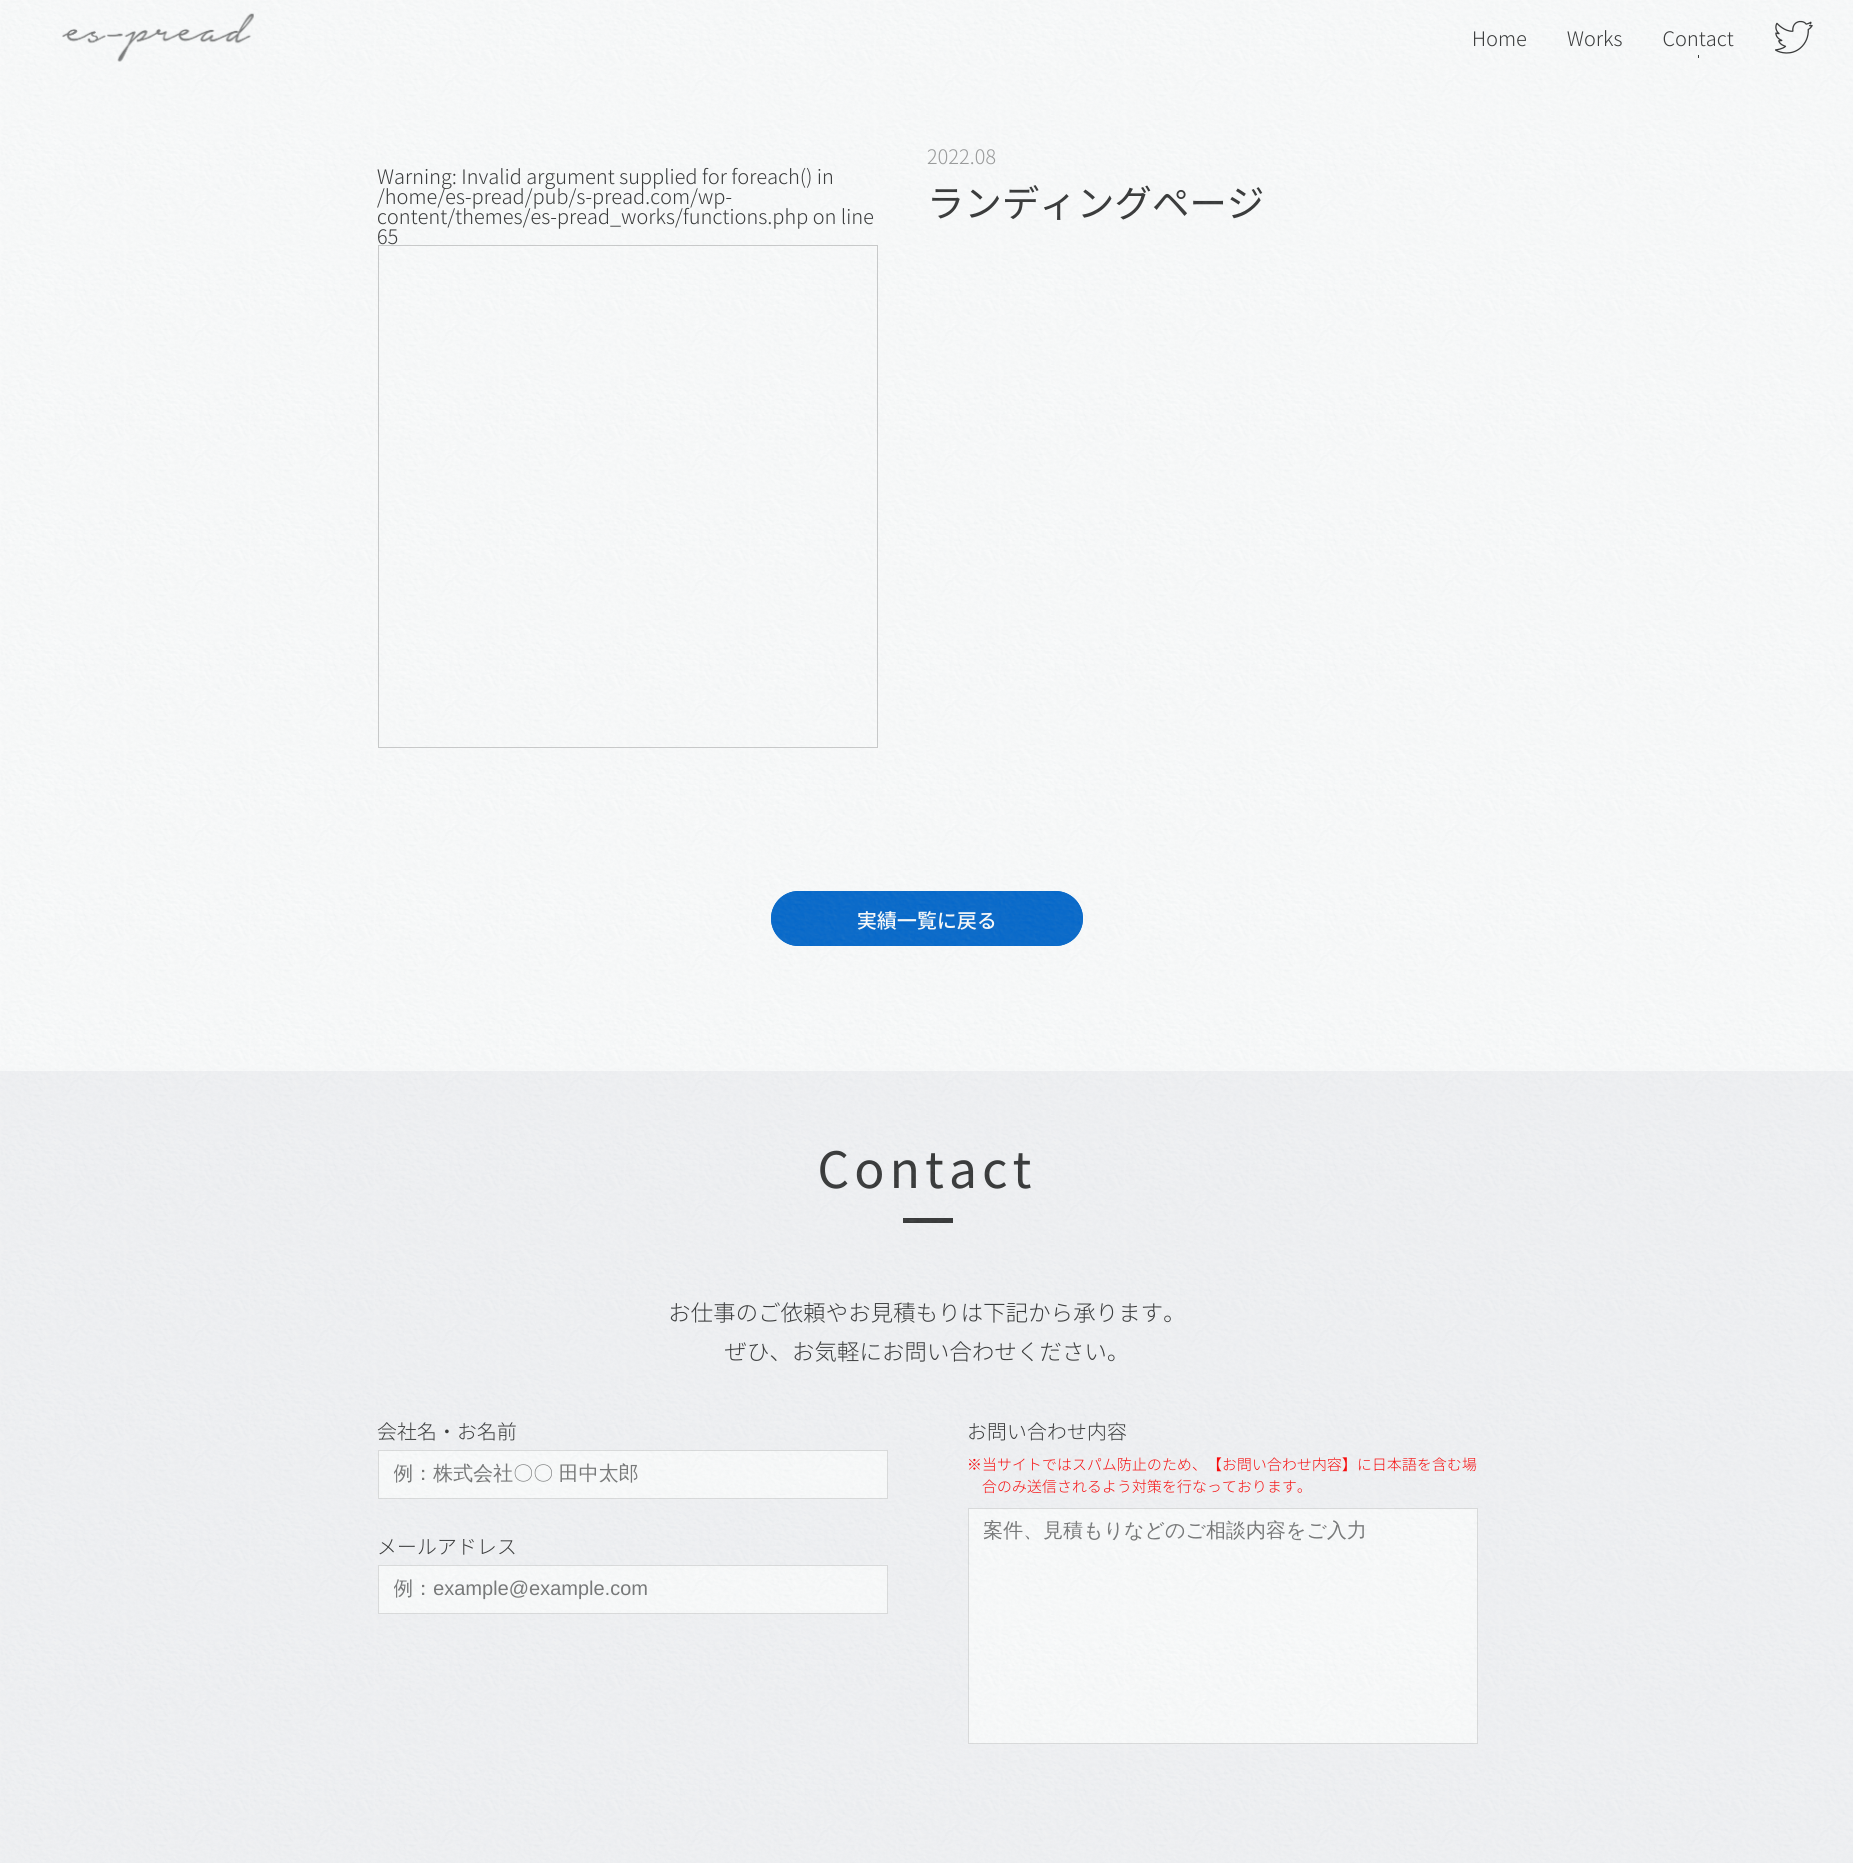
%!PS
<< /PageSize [1853 1863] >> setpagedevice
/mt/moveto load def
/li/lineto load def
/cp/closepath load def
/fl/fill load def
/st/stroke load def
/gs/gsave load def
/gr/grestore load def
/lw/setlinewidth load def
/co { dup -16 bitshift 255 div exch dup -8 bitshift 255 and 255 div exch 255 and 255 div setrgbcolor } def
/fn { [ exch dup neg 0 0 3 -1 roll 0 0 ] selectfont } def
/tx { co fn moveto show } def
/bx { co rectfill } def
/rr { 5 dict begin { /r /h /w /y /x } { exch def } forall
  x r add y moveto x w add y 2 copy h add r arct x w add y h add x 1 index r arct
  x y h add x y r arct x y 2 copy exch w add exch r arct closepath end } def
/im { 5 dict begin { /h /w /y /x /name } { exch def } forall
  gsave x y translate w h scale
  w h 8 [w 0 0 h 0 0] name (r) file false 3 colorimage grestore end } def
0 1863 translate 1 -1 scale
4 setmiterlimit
0 0 1853 1863 16#FFFFFF bx
(media/2.raw) 62 13 192 49 im
1698 55 1 3 16#333333 bx
(media/3.raw) 1775 20 38 34 im
16#CCCCCC co
378.5 245.5 499 502 rectstroke
16#0066CC co
772.5 892.5 309 52 26 rr gs fl gr
3 lw
st
0 1071 1853 792 16#F5F5F7 bx
903 1218 50 5 16#333333 bx
16#FFFFFF co
378.5 1450.5 mt 887.5 1450.5 li 887.5 1498.5 li 378.5 1498.5 li cp gs fl gr
16#DEDEDE co
1 lw
st
16#FFFFFF co
378.5 1565.5 mt 887.5 1565.5 li 887.5 1613.5 li 378.5 1613.5 li cp gs fl gr
16#DEDEDE co
st
16#FFFFFF co
968.5 1508.5 mt 1477.5 1508.5 li 1477.5 1743.5 li 968.5 1743.5 li cp gs fl gr
16#DEDEDE co
st
(Home) 1472 46 /NotoSansJP-Light 20 16#333333 tx
(Works) 1567 46 /NotoSansJP-Light 20 16#333333 tx
(Contact) 1662 46 /NotoSansJP-Light 20 16#333333 tx
(Warning: Invalid argument supplied for foreach\(\) in) 377 184 /NotoSansJP-Light 20 16#333333 tx
(/home/es-pread/pub/s-pread.com/wp-) 377 204 /NotoSansJP-Light 20 16#333333 tx
(content/themes/es-pread_works/functions.php on line) 377 224 /NotoSansJP-Light 20 16#333333 tx
(65) 377 244 /NotoSansJP-Light 20 16#333333 tx
(2022.08) 927 164 /NotoSansJP-Light 20 16#999999 tx
(ランディングページ) 927 217 /NotoSansJP-Regular 37.5 16#333333 tx
(実績一覧に戻る) 857 928 /NotoSansJP-Medium 20 16#FFFFFF tx
/NotoSansJP-Regular 50 fn
16#333333 co
817 1188 mt 5 0 (Contact) ashow
(お仕事のご依頼やお見積もりは下記から承ります。) 668 1321 /NotoSansJP-Light 22.5 16#333333 tx
(ぜひ、お気軽にお問い合わせください。) 724 1360 /NotoSansJP-Light 22.5 16#333333 tx
(会社名・お名前) 377 1439 /NotoSansJP-Light 20 16#333333 tx
(例：株式会社〇〇 田中太郎) 393 1480 /WenQuanYiZenHei-Medium 20 16#757575 tx
(メールアドレス) 377 1554 /NotoSansJP-Light 20 16#333333 tx
(例：) 393 1595 /WenQuanYiZenHei-Medium 20 16#757575 tx
(example@example.com) 433 1595 /LiberationSans-Regular 20 16#757575 tx
(お問い合わせ内容) 967 1439 /NotoSansJP-Light 20 16#333333 tx
(※当サイトではスパム防止のため、【お問い合わせ内容】に日本語を含む場) 967 1470 /NotoSansJP-Light 15 16#FF0000 tx
(合のみ送信されるよう対策を行なっております。) 982 1492 /NotoSansJP-Light 15 16#FF0000 tx
(案件、見積もりなどのご相談内容をご入力) 983 1537 /WenQuanYiZenHei-Medium 20 16#757575 tx
(media/1.raw) 0 0 1853 1863 im
showpage
